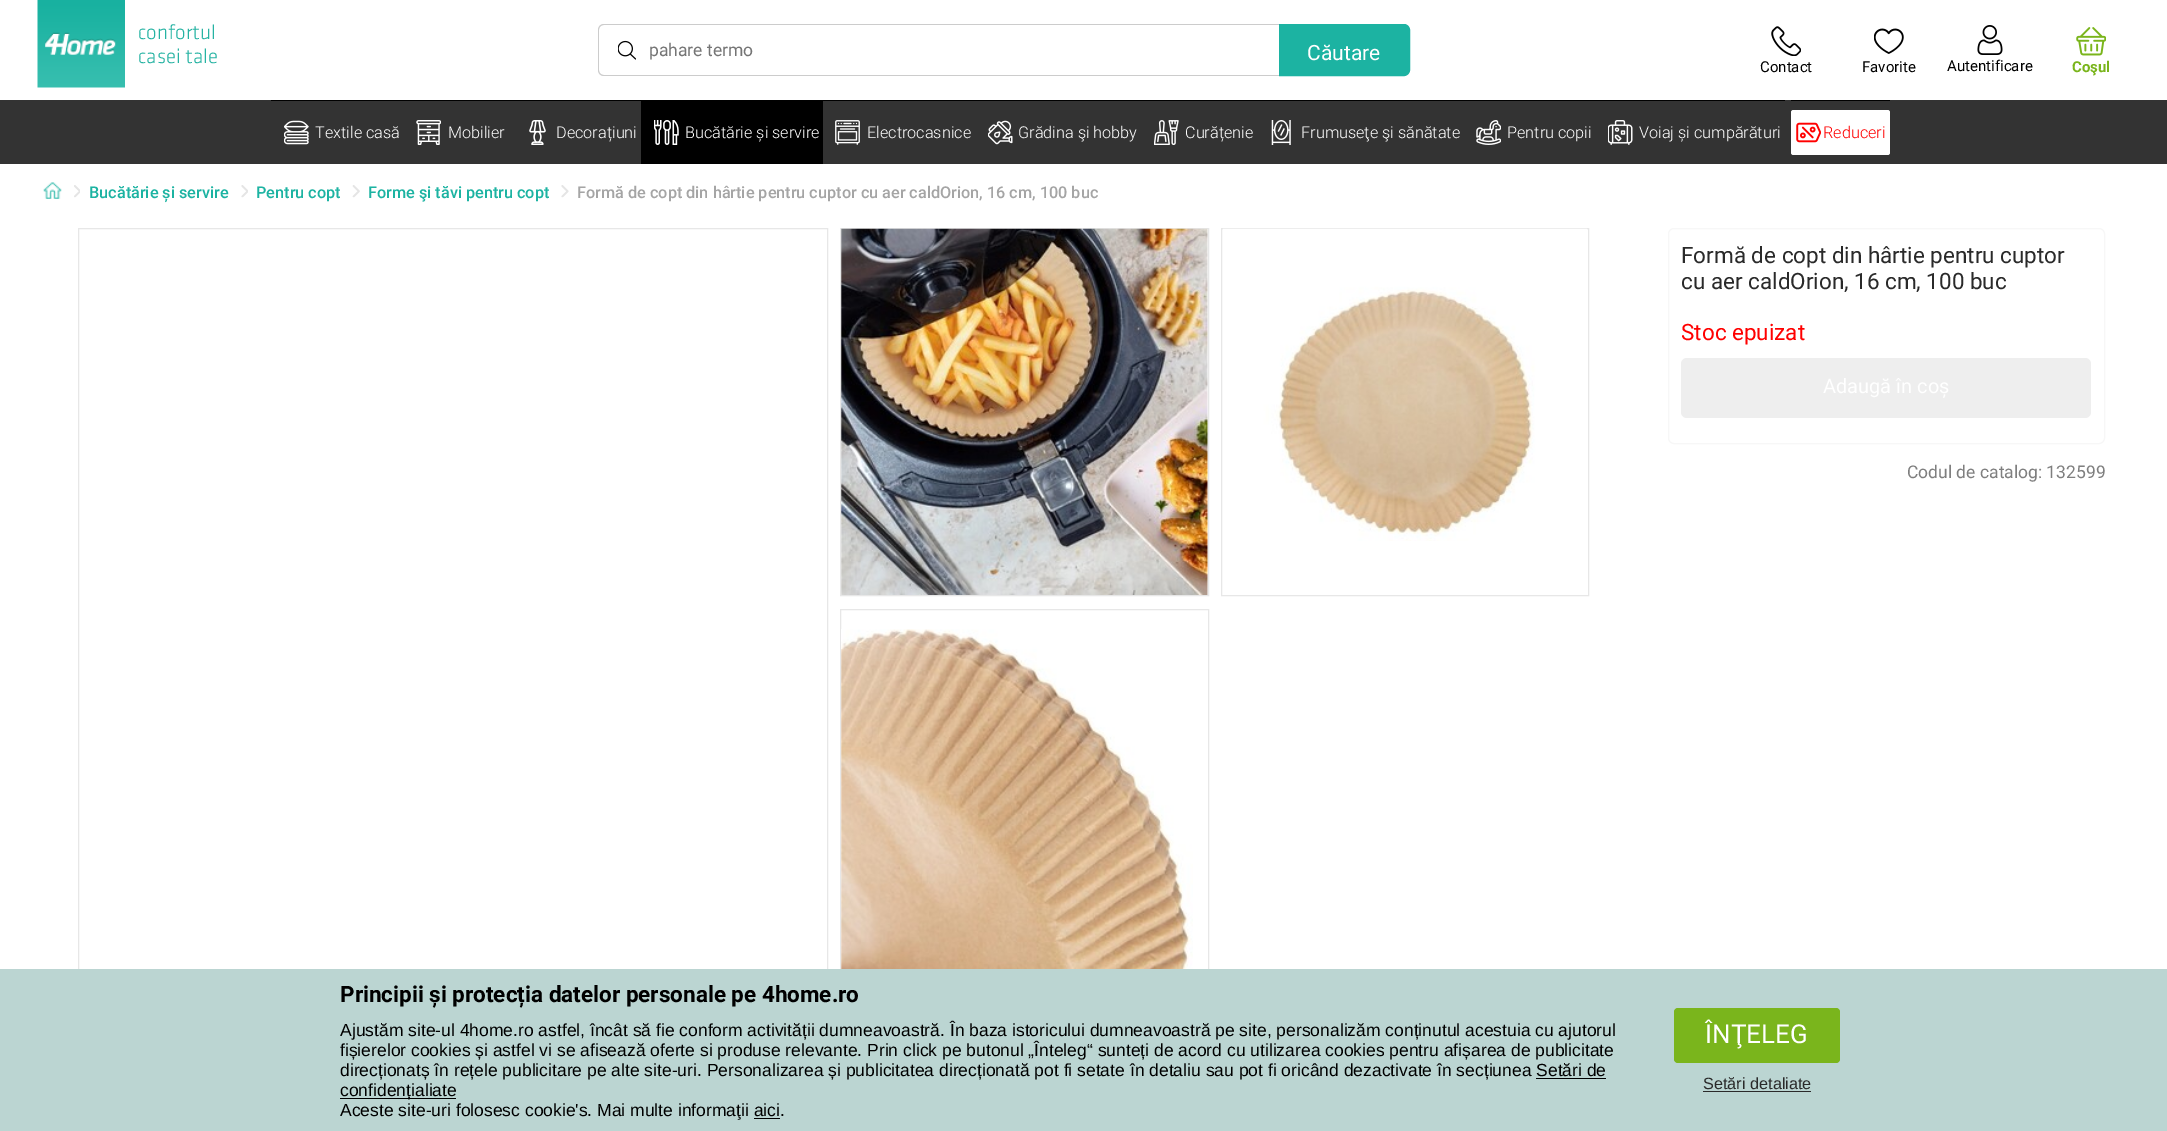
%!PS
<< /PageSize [2167 1131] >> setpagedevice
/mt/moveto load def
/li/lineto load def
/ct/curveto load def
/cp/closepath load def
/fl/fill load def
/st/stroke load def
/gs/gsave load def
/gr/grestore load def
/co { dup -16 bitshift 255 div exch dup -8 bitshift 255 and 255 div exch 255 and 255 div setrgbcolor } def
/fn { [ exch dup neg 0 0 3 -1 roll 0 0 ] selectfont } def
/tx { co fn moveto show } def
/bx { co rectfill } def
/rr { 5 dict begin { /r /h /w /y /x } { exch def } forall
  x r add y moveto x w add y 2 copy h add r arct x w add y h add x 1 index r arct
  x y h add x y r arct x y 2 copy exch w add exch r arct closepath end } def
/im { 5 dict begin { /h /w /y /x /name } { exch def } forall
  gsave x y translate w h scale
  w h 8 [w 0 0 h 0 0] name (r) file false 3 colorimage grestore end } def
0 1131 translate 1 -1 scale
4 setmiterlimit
0 0 2167 1131 16#FFFFFF bx
(media/1.raw) 37 0 88 88 im
(media/2.raw) 618 40 18 20 im
16#CCCCCC co
604 24 mt 1404 24 li 1404 76 li 604 76 li 600 76 598 73 598 70 ct 598 30 li 598 27 600 24 604 24 ct cp 604 25 mt 1404 25 li 1404 75 li 604 75 li 601 75 599 73 599 70 ct 599 30 li 599 27 601 25 604 25 ct cp eofill
16#1CB3A2 co
1279.5 24.5 mt 1404 24.5 li 1407 24.5 1409.5 27 1409.5 30 ct 1409.5 70 li 1409.5 73 1407 75.5 1404 75.5 ct 1279.5 75.5 li cp gs fl gr
st
(media/3.raw) 1771 26 30 30 im
(media/4.raw) 1874 28 30 26 im
(media/5.raw) 1977 25 26 30 im
(media/6.raw) 2076 27 30 29 im
0 100 2167 64 16#333333 bx
271 100 1514 1 16#000000 bx
(media/7.raw) 284 120 25 25 im
(media/8.raw) 416 120 25 25 im
(media/9.raw) 529 120 17 25 im
641 101 182 63 16#000000 bx
(media/10.raw) 654 120 25 25 im
(media/11.raw) 835 120 25 25 im
(media/12.raw) 988 120 25 25 im
(media/13.raw) 1154 120 25 25 im
(media/14.raw) 1271 120 20 25 im
(media/15.raw) 1476 120 25 25 im
(media/16.raw) 1608 120 25 25 im
1791 100 99 1 16#000000 bx
16#FFFFFF co
1791 110 99 45 2.5 rr fl
(media/17.raw) 1796 122 25 21 im
(media/18.raw) 43 182 19 17 im
(media/19.raw) 74 185 6 13 im
(media/20.raw) 241 185 7 13 im
(media/21.raw) 352 185 8 13 im
(media/22.raw) 561 185 8 13 im
16#E7E7E7 co
78.5 228.5 749 749 rectstroke
840.5 228.5 368 367 rectstroke
(media/23.raw) 841 228 367 367 im
1221.5 228.5 367 367 rectstroke
(media/24.raw) 1223 228 364 313 im
840.5 609.5 368 368 rectstroke
(media/25.raw) 841 629 352 340 im
16#F7F7F7 co
1668.5 228.5 436 215 5.5 rr st
16#EEEEEE co
1681 358 410 60 6 rr fl
0 969 2167 162 16#BBD5D2 bx
1536 1078 70 1 16#000000 bx
340 1098 116 1 16#000000 bx
754 1118 26 1 16#000000 bx
16#7AB51C co
1674 1008 166 55 4 rr fl
1703 1091 108 1 16#2A2A2A bx
(confortul) 138 39 /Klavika-Light 21 16#26B3A3 tx
(casei tale) 138 63 /Klavika-Light 21 16#26B3A3 tx
(pahare termo) 649 56 /Roboto-Regular 17.5 16#757575 tx
(Căutare) 1307 60 /Roboto-Regular 21 16#FFFFFF tx
(Contact) 1760 72 /Roboto-Regular 15 16#000000 tx
(Favorite) 1862 72 /Roboto-Regular 15 16#000000 tx
(Autentificare) 1947 71 /Roboto-Regular 15 16#000000 tx
(Coşul) 2072 72 /Roboto-Bold 15 16#7AB51C tx
(Textile casă) 315 138 /Roboto-Light 16.25 16#FFFFFF tx
(Mobilier) 448 138 /Roboto-Light 16.25 16#FFFFFF tx
(Decorațiuni) 556 138 /Roboto-Light 16.25 16#FFFFFF tx
(Bucătărie și servire) 685 138 /Roboto-Light 16.25 16#FFFFFF tx
(Electrocasnice) 867 138 /Roboto-Light 16.25 16#FFFFFF tx
(Grădina şi hobby) 1018 138 /Roboto-Light 16.25 16#FFFFFF tx
(Curățenie) 1185 138 /Roboto-Light 16.25 16#FFFFFF tx
(Frumuseţe şi sănătate) 1301 138 /Roboto-Light 16.25 16#FFFFFF tx
(Pentru copii) 1507 138 /Roboto-Light 16.25 16#FFFFFF tx
(Voiaj și cumpărături) 1639 138 /Roboto-Light 16.25 16#FFFFFF tx
(Reduceri) 1823 138 /Roboto-Light 16.25 16#FF0000 tx
(Bucătărie și servire) 89 198 /Roboto-Medium 16.25 16#1CB3A2 tx
(Pentru copt) 256 198 /Roboto-Medium 16.25 16#1CB3A2 tx
(Forme şi tăvi pentru copt) 368 198 /Roboto-Medium 16.25 16#1CB3A2 tx
(Formă de copt din hârtie pentru cuptor cu aer caldOrion, 16 cm, 100 buc) 577 198 /Roboto-Medium 16.25 16#A5A5A5 tx
(Formă de copt din hârtie pentru cuptor) 1681 263 /Roboto-Regular 22.5 16#2A2A2A tx
(cu aer caldOrion, 16 cm, 100 buc) 1681 289 /Roboto-Regular 22.5 16#2A2A2A tx
(Stoc epuizat) 1681 340 /Roboto-Regular 22.5 16#FF0000 tx
(Adaugă în coș) 1823 393 /Roboto-Regular 20 16#FFFFFF tx
(Codul de catalog: 132599) 1907 478 /Roboto-Regular 17.5 16#7F7F7F tx
(Principii și protecția datelor personale pe 4home.ro) 340 1002 /Roboto-Bold 22.5 16#000000 tx
(Ajustăm site-ul 4home.ro astfel, încât să fie conform activității dumneavoastră. În baza istoricului dumneavoastră pe site, personalizăm conținutul acestuia cu ajutorul) 340 1036 /LiberationSans-Regular 17.5 16#000000 tx
(fișierelor cookies și astfel vi se afisează oferte si produse relevante. Prin click pe butonul „Înteleg“ sunteți de acord cu utilizarea cookies pentru afișarea de publicitate) 340 1056 /LiberationSans-Regular 17.5 16#000000 tx
(direcționatș în rețele publicitare pe alte site-uri. Personalizarea și publicitatea direcționată pot fi setate în detaliu sau pot fi oricând dezactivate în secțiunea Setări de) 340 1076 /LiberationSans-Regular 17.5 16#000000 tx
(confidențialiate) 340 1096 /LiberationSans-Regular 17.5 16#000000 tx
(Aceste site-uri folosesc cookie's. Mai multe informaţii aici.) 340 1116 /LiberationSans-Regular 17.5 16#000000 tx
(ÎNŢELEG) 1705 1043 /Roboto-Regular 26 16#FFFFFF tx
(Setări detaliate) 1703 1089 /LiberationSans-Regular 16.25 16#2A2A2A tx
showpage
